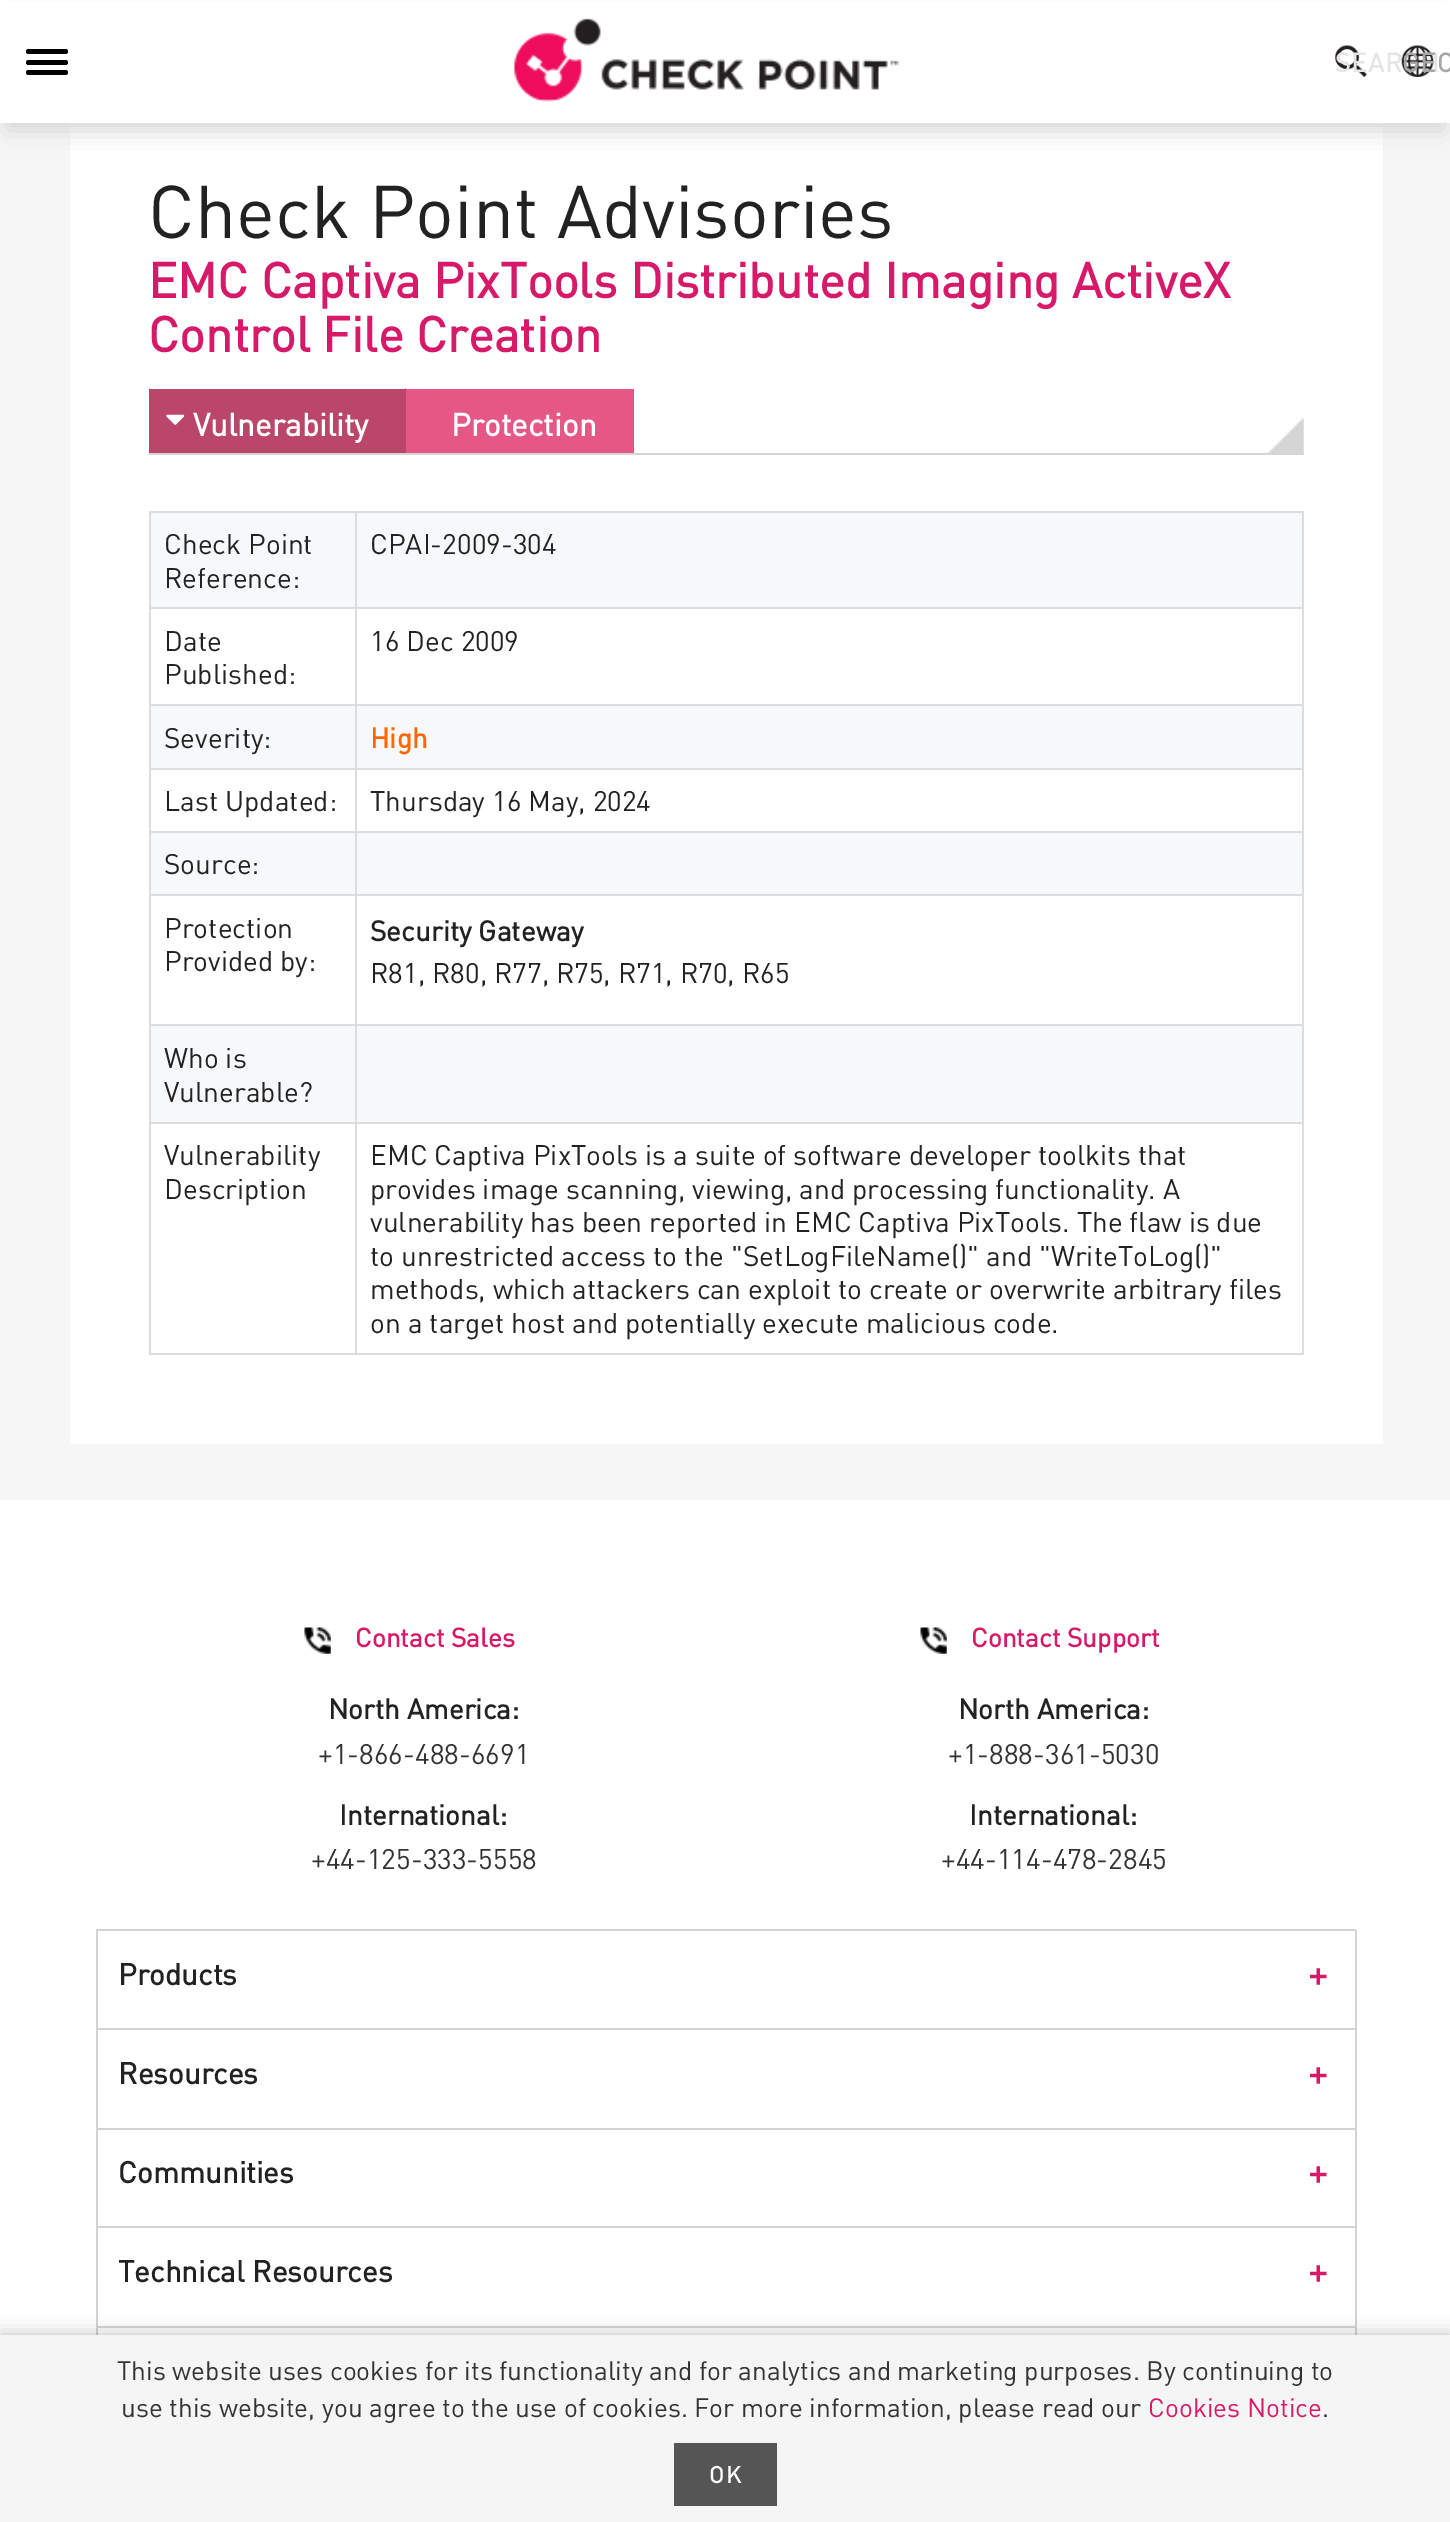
%!PS
<< /PageSize [1450 2522] /PageUsesTransparency true >> setpagedevice
/mt/moveto load def
/li/lineto load def
/cp/closepath load def
/fl/fill load def
/co { dup -16 bitshift 255 div exch dup -8 bitshift 255 and 255 div exch 255 and 255 div setrgbcolor } def
/fn { [ exch dup neg 0 0 3 -1 roll 0 0 ] selectfont } def
/tx { co fn moveto show } def
/bx { co rectfill } def
/al { dup .setfillconstantalpha .setstrokeconstantalpha } def
/rr { 5 dict begin { /r /h /w /y /x } { exch def } forall
  x r add y moveto x w add y 2 copy h add r arct x w add y h add x 1 index r arct
  x y h add x y r arct x y 2 copy exch w add exch r arct closepath end } def
/sh { 12 dict begin { /a /b /q /h /w /y /x } { exch def } forall gsave /was 0 def
  9 -2 -9 { dup b mul 4 div /e exch def 1 sub .425 mul 2.718 exch exp 1 add a .99 .min exch div /now exch def
    1 1 now sub 1 was sub div sub al /was now def
    w h .min e 2 mul add 0 gt { x e sub y e sub w e 2 mul add h e 2 mul add
      q e add b .6 mul add w h .min 2 div e add .min 0 .max rr fill } if } for grestore end } def
/im { 5 dict begin { /h /w /y /x /name } { exch def } forall
  gsave x y translate w h scale
  w h 8 [w 0 0 h 0 0] name (r) file false 3 colorimage grestore end } def
0 .pushpdf14devicefilter
0 2522 translate 1 -1 scale
4 setmiterlimit
0 0 1450 2522 16#FFFFFF bx
0 123 1450 1377 16#F6F6F6 bx
70 123 1313 1321 16#FFFFFF bx
16#D3D3D3 co
7 21 1437 109 0 12 1 sh
0 2 1450 121 16#FFFFFF bx
16#000000 co
26 49 42 5 2.5 rr fl
26 60 42 5 2.5 rr fl
26 70 42 5 2.5 rr fl
(media/1.raw) 514 18 386 84 im
(media/2.raw) 1335 45 32 32 im
(media/4.raw) 1267 417 37 36 im
149 453 1155 2 16#D5D5D5 bx
149 389 257 64 16#BA4669 bx
(media/5.raw) 166 414 19 11 im
406 388 mt 406 453 li 404 452 li 404 390 li cp fl
149 453 mt 149 388 li 150 390 li 150 452 li cp fl
406 389 228 64 16#E55785 bx
149 511 1155 2 16#DDDDDD bx
1302 511 2 844 16#DDDDDD bx
149 1353 1155 2 16#DDDDDD bx
149 511 2 844 16#DDDDDD bx
151 513 1151 94 16#F7F8FA bx
355 607 949 2 16#DDDDDD bx
355 704 949 2 16#DDDDDD bx
151 706 1151 62 16#F7F8FA bx
355 768 949 2 16#DDDDDD bx
355 831 949 2 16#DDDDDD bx
151 833 1151 61 16#F7F8FA bx
355 894 949 2 16#DDDDDD bx
355 1024 949 2 16#DDDDDD bx
151 1026 1151 96 16#F7F8FA bx
355 1122 949 2 16#DDDDDD bx
355 1122 2 233 16#DDDDDD bx
149 1122 208 2 16#DDDDDD bx
355 1024 2 100 16#DDDDDD bx
149 1024 208 2 16#DDDDDD bx
355 894 2 132 16#DDDDDD bx
149 894 208 2 16#DDDDDD bx
355 831 2 65 16#DDDDDD bx
149 831 208 2 16#DDDDDD bx
355 768 2 65 16#DDDDDD bx
149 768 208 2 16#DDDDDD bx
355 704 2 66 16#DDDDDD bx
149 704 208 2 16#DDDDDD bx
355 607 2 98 16#DDDDDD bx
149 607 208 2 16#DDDDDD bx
355 511 2 98 16#DDDDDD bx
96 1929 1260 2 16#D3D3D3 bx
(media/6.raw) 304 1627 27 27 im
(media/7.raw) 920 1627 27 27 im
1355 1930 2 405 16#D3D3D3 bx
96 2028 1260 2 16#D3D3D3 bx
96 1930 2 100 16#D3D3D3 bx
96 2128 1260 2 16#D3D3D3 bx
96 2030 2 100 16#D3D3D3 bx
96 2226 1260 2 16#D3D3D3 bx
96 2130 2 98 16#D3D3D3 bx
96 2326 1260 2 16#D3D3D3 bx
96 2228 2 107 16#D3D3D3 bx
16#000000 co
0 2335 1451 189 0 9 .25 sh
0 2335 1450 187 16#F5F5F5 bx
674 2443 103 63 16#555555 bx
/DIN-Bold 26.25 fn
16#E6E5E5 co
1335 72 mt 1 0 (SEARCH) ashow
(media/3.raw) 1401 45 33 32 im
16#A8A7A7 co
1402 72 mt 1 0 (GEO) ashow
(Check Point Advisories) 148 238 /DIN-Regular 73.5 16#222222 tx
(EMC Captiva PixTools Distributed Imaging ActiveX) 148 298 /DIN-Bold 49 16#D61A69 tx
(Control File Creation) 148 352 /DIN-Bold 49 16#D61A69 tx
(Vulnerability) 193 436 /DIN-Bold 31.5 16#FFFFFF tx
(Protection) 451 436 /DIN-Bold 31.5 16#FFFFFF tx
(Check Point) 164 554 /DIN-Regular 28 16#222222 tx
(Reference:) 164 588 /DIN-Regular 28 16#222222 tx
(CPAI-2009-304) 370 554 /DIN-Regular 28 16#222222 tx
(Date) 164 651 /DIN-Regular 28 16#222222 tx
(Published:) 164 684 /DIN-Regular 28 16#222222 tx
(16 Dec 2009) 370 651 /DIN-Regular 28 16#222222 tx
(Severity:) 164 748 /DIN-Regular 28 16#222222 tx
(High) 370 748 /DIN-Bold 28 16#FF6600 tx
(Last Updated:) 164 811 /DIN-Regular 28 16#222222 tx
(Thursday 16 May, 2024) 370 811 /DIN-Regular 28 16#222222 tx
(Source:) 164 874 /DIN-Regular 28 16#222222 tx
(Protection) 164 938 /DIN-Regular 28 16#222222 tx
(Provided by:) 164 971 /DIN-Regular 28 16#222222 tx
(Security Gateway) 370 941 /DIN-Bold 28 16#222222 tx
(R81, R80, R77, R75, R71, R70, R65) 370 983 /DIN-Regular 28 16#222222 tx
(Who is) 164 1068 /DIN-Regular 28 16#222222 tx
(Vulnerable?) 164 1102 /DIN-Regular 28 16#222222 tx
(Vulnerability) 164 1165 /DIN-Regular 28 16#222222 tx
(Description) 164 1199 /DIN-Regular 28 16#222222 tx
(EMC Captiva PixTools is a suite of software developer toolkits that) 370 1165 /DIN-Regular 28 16#222222 tx
(provides image scanning, viewing, and processing functionality. A) 370 1199 /DIN-Regular 28 16#222222 tx
(vulnerability has been reported in EMC Captiva PixTools. The flaw is due) 370 1232 /DIN-Regular 28 16#222222 tx
(to unrestricted access to the "SetLogFileName\(\)" and "WriteToLog\(\)") 370 1266 /DIN-Regular 28 16#222222 tx
(methods, which attackers can exploit to create or overwrite arbitrary files) 370 1299 /DIN-Regular 28 16#222222 tx
(on a target host and potentially execute malicious code.) 370 1333 /DIN-Regular 28 16#222222 tx
(Contact Sales) 355 1647 /DIN-Bold 26.25 16#D61A69 tx
(North America:) 328 1719 /DIN-Bold 28 16#222222 tx
(+1-866-488-6691) 318 1764 /DIN-Regular 28 16#333333 tx
(International:) 339 1825 /DIN-Bold 28 16#222222 tx
(+44-125-333-5558) 311 1869 /DIN-Regular 28 16#333333 tx
(Contact Support) 971 1647 /DIN-Bold 26.25 16#D61A69 tx
(North America:) 958 1719 /DIN-Bold 28 16#222222 tx
(+1-888-361-5030) 948 1764 /DIN-Regular 28 16#333333 tx
(International:) 969 1825 /DIN-Bold 28 16#222222 tx
(+44-114-478-2845) 941 1869 /DIN-Regular 28 16#333333 tx
(Products) 118 1985 /DIN-Bold 29.75 16#222222 tx
(+) 1308 1987 /DIN-Bold 37 16#D61A69 tx
(Resources) 118 2084 /DIN-Bold 29.75 16#222222 tx
(+) 1308 2086 /DIN-Bold 37 16#D61A69 tx
(Communities) 118 2183 /DIN-Bold 29.75 16#222222 tx
(+) 1308 2185 /DIN-Bold 37 16#D61A69 tx
(Technical Resources) 118 2282 /DIN-Bold 29.75 16#222222 tx
(+) 1308 2284 /DIN-Bold 37 16#D61A69 tx
(This website uses cookies for its functionality and for analytics and marketing purposes. By continuing to) 117 2380 /DIN-Regular 26.25 16#333333 tx
(use this website, you agree to the use of cookies. For more information, please read our) 121 2417 /DIN-Regular 26.25 16#333333 tx
(Cookies Notice) 1148 2417 /DIN-Regular 26.25 16#D61A69 tx
(.) 1322 2417 /DIN-Regular 26.25 16#333333 tx
/DIN-Bold 23 fn
16#FFFFFF co
709 2483 mt 2 0 (OK) ashow
.poppdf14devicefilter showpage
